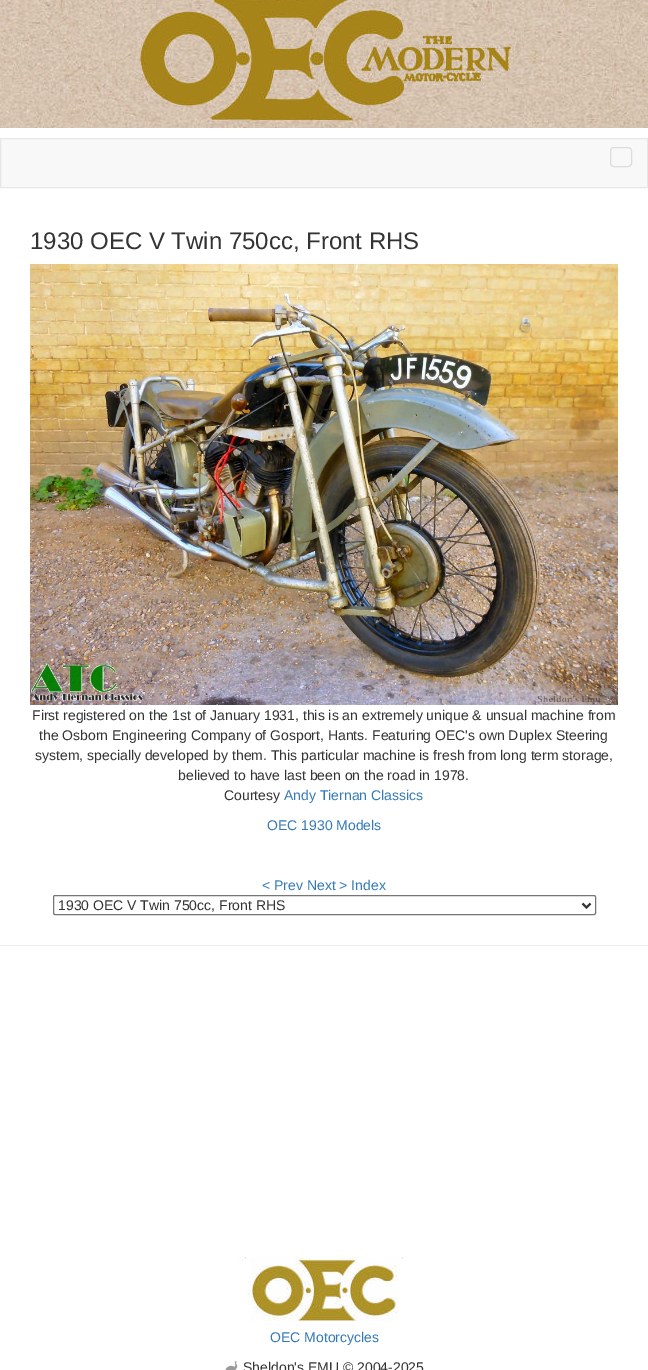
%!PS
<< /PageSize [648 1370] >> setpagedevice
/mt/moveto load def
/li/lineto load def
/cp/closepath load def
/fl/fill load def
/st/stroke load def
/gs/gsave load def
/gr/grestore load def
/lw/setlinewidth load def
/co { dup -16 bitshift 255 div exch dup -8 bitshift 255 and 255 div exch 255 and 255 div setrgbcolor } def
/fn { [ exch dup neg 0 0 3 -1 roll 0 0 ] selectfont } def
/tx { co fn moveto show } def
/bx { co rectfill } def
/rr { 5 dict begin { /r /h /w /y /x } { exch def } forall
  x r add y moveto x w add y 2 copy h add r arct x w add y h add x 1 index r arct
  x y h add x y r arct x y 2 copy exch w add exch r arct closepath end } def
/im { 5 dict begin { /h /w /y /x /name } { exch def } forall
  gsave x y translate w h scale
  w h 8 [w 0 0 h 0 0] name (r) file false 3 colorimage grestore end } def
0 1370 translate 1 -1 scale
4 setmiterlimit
0 0 648 1370 16#FFFFFF bx
(media/1.raw) 0 0 648 128 im
(media/2.raw) 124 0 400 128 im
16#F8F8F8 co
.5 138.5 mt 647.5 138.5 li 647.5 187.5 li .5 187.5 li cp gs fl gr
16#E7E7E7 co
st
16#DDDDDD co
610.5 147.5 21 19 3.5 rr st
(media/3.raw) 30 264 588 441 im
16#767676 co
53.5 895.5 542 19 1.5 rr st
16#333333 co
2 lw
582.5 903.5 mt 586.5 907.5 li 590.5 903.5 li st
0 945 648 1 16#EEEEEE bx
(media/4.raw) 238 1257 168 64 im
(media/5.raw) 225 1361 13 9 im
(1930 OEC V Twin 750cc, Front RHS) 30 249 /LiberationSans-Regular 24 16#333333 tx
(First registered on the 1st of January 1931, this is an extremely unique & unsual machine from) 32 720 /LiberationSans-Regular 14 16#333333 tx
(the Osborn Engineering Company of Gosport, Hants. Featuring OEC's own Duplex Steering) 39 740 /LiberationSans-Regular 14 16#333333 tx
(system, specially developed by them. This particular machine is fresh from long term storage,) 35 760 /LiberationSans-Regular 14 16#333333 tx
(believed to have last been on the road in 1978.) 178 780 /LiberationSans-Regular 14 16#333333 tx
(Courtesy) 224 800 /LiberationSans-Regular 14 16#333333 tx
(Andy Tiernan Classics) 284 800 /LiberationSans-Regular 14 16#337AB7 tx
(OEC 1930 Models) 267 830 /LiberationSans-Regular 14 16#337AB7 tx
(< Prev Next > Index) 262 890 /LiberationSans-Regular 14 16#337AB7 tx
(1930 OEC V Twin 750cc, Front RHS) 58 910 /LiberationSans-Regular 14 16#333333 tx
(OEC Motorcycles) 270 1342 /LiberationSans-Regular 14 16#337AB7 tx
(Sheldon's EMU © 2004-2025) 243 1372 /LiberationSans-Regular 14 16#333333 tx
showpage
